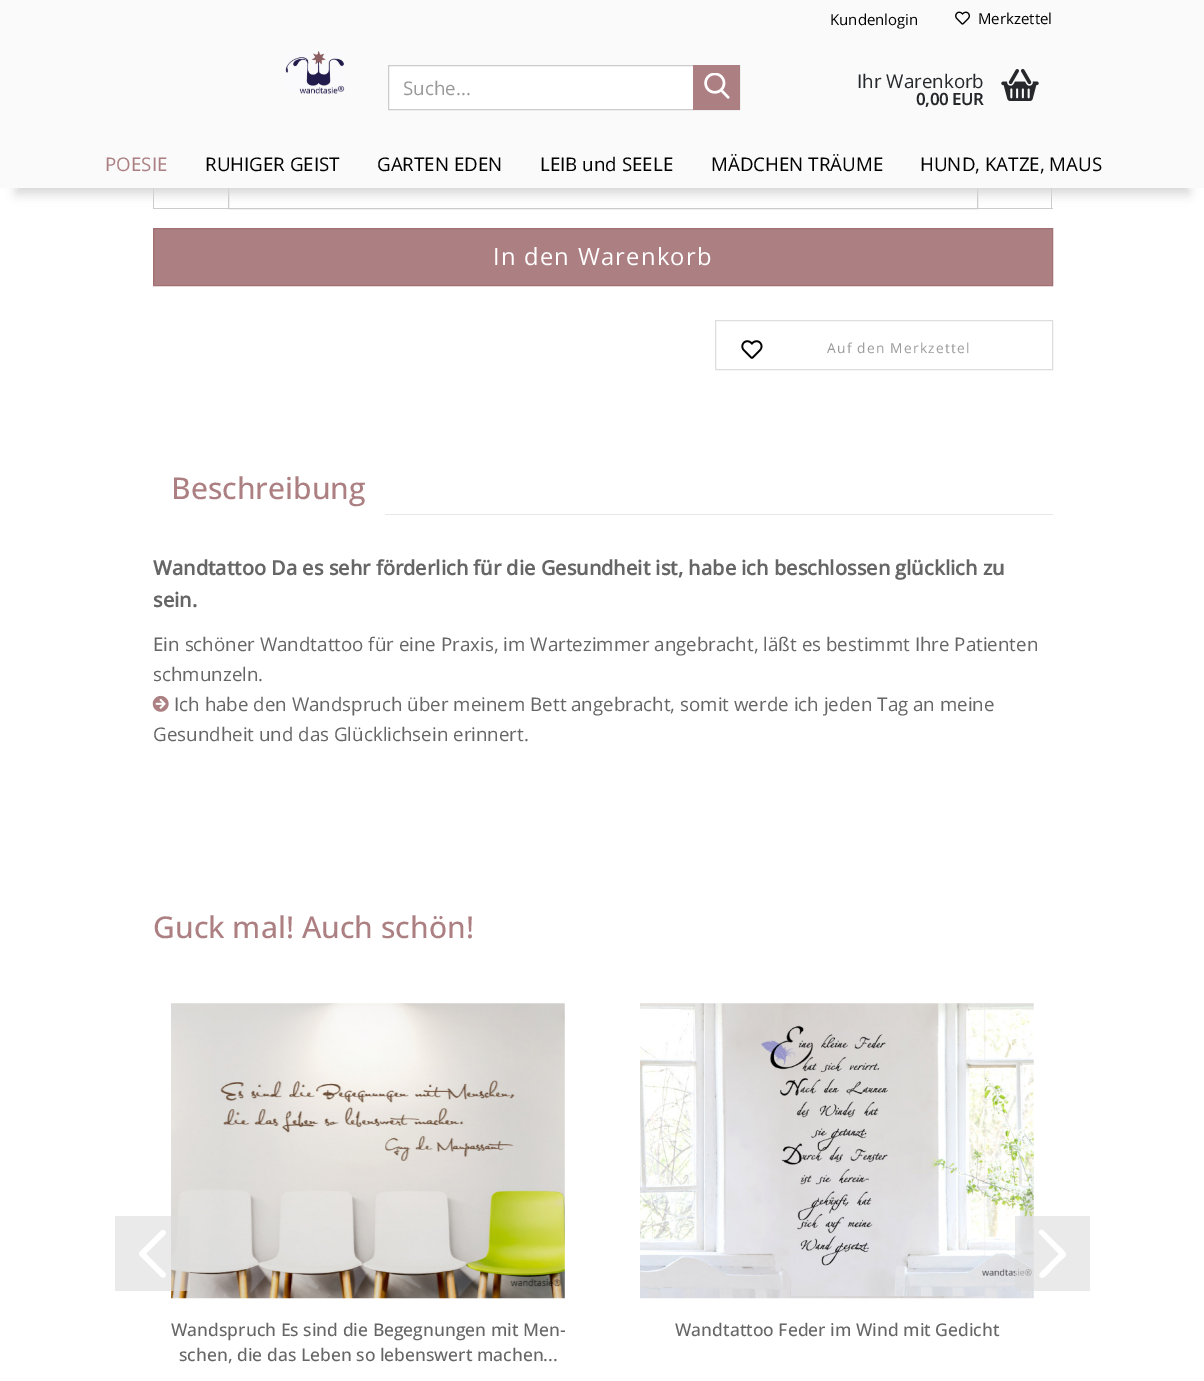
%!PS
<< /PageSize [1204 1381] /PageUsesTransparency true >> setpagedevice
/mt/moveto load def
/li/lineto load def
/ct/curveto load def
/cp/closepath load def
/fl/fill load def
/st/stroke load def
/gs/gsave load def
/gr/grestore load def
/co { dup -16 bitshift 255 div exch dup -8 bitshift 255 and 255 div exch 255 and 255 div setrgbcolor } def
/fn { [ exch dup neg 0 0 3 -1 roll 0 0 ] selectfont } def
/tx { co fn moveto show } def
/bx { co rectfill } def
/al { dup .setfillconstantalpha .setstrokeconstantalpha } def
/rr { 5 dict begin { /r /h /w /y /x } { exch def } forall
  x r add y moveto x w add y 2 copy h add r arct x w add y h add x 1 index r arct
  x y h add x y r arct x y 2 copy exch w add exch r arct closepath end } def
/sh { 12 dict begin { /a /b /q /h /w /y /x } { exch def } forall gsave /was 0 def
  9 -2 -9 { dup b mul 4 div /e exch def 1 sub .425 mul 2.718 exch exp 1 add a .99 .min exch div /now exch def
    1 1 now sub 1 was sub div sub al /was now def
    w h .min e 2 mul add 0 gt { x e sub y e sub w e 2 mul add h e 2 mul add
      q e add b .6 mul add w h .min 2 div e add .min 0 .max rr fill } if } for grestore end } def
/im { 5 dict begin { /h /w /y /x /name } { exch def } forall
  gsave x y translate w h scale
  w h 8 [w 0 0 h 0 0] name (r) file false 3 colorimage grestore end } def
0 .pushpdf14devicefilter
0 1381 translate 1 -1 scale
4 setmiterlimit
0 0 1204 1381 16#FFFFFF bx
0 0 1204 138 16#FAFAFB bx
(media/1.raw) 955 11 15 14 im
(media/2.raw) 285 51 60 43 im
389 66 304 43 16#FFFFFF bx
16#CCCCCC co
388.5 65.5 351 44 rectstroke
693 65 47 45 16#AC7F82 bx
(media/3.raw) 704 73 26 26 im
(media/4.raw) 1001 68 38 33 im
153 208 75 1 16#CCCCCC bx
153 188 1 21 16#CCCCCC bx
228.5 149.5 749 59 rectstroke
1051 188 1 21 16#CCCCCC bx
978 208 75 1 16#CCCCCC bx
16#D6D6D6 co
16 176 1173 18 0 5.5 1 sh
0 138 1204 50 16#FAFAFB bx
16#AC7F82 co
153.5 228.5 mt 1052.5 228.5 li 1052.5 285.5 li 153.5 285.5 li cp gs fl gr
16#A27073 co
st
16#DDDDDD co
715.5 320.5 337 49 rectstroke
(media/5.raw) 741 340 22 19 im
385 514 668 1 16#E7E7E7 bx
(media/6.raw) 152 695 17 17 im
(media/8.raw) 171 1003 394 296 im
0.6 al
115 1216 75 75 16#DCDCDC bx
1 al
(media/7.raw) 139 1230 27 48 im
(media/9.raw) 640 1003 394 296 im
0.6 al
1015 1216 75 75 16#DCDCDC bx
1 al
16#FFFFFF co
1042 1278 mt 1040 1277 li 1038 1274 1042 1271 1043 1270 ct 1059 1254 li 1039 1233 li 1038 1231 1041 1229 1043 1230 ct 1058 1245 li 1070 1257 1068 1253 1055 1266 ct 1052 1269 1045 1278 1042 1278 ct cp fl
(Kundenlogin) 830 25 /OpenSans-Regular 15 16#000000 tx
(Merkzettel) 978 24 /OpenSans-Regular 15 16#000000 tx
(Suche...) 403 95 /OpenSans-Regular 18.75 16#999999 tx
(Ihr Warenkorb) 857 88 /OpenSans-Regular 18.75 16#26282B tx
(0,00 EUR) 916 105 /OpenSans-Bold 16.25 16#26282B tx
(POESIE) 105 171 /OpenSans-Regular 18.75 16#AC7F82 tx
(RUHIGER GEIST) 205 171 /OpenSans-Regular 18.75 16#000000 tx
(GARTEN EDEN) 377 171 /OpenSans-Regular 18.75 16#000000 tx
(LEIB und SEELE) 540 171 /OpenSans-Regular 18.75 16#000000 tx
(MÄDCHEN TRÄUME) 711 171 /OpenSans-Regular 18.75 16#000000 tx
(HUND, KATZE, MAUS) 920 171 /OpenSans-Regular 18.75 16#000000 tx
/OpenSans-Regular 23.75 fn
16#FFFFFF co
493 265 mt 1.25 0 (In den Warenkorb) ashow
/OpenSans-Regular 13.75 fn
16#999999 co
827 353 mt 1.25 0 (Auf den Merkzettel) ashow
(Beschreibung) 171 499 /OpenSans-Medium 30 16#AC7F82 tx
(Wandtattoo Da es sehr förderlich für die Gesundheit ist, habe ich beschlossen glücklich zu) 153 575 /OpenSans-Bold 20 16#666666 tx
(sein.) 153 607 /OpenSans-Bold 20 16#666666 tx
(Ein schöner Wandtattoo für eine Praxis, im Wartezimmer angebracht, läßt es bestimmt Ihre Patienten) 153 651 /OpenSans-Regular 18.75 16#666666 tx
(schmunzeln.) 153 681 /OpenSans-Regular 18.75 16#666666 tx
(Ich habe den Wandspruch über meinem Bett angebracht, somit werde ich jeden Tag an meine) 174 711 /OpenSans-Regular 18.75 16#666666 tx
(Gesundheit und das Glücklichsein erinnert.) 153 741 /OpenSans-Regular 18.75 16#666666 tx
(Guck mal! Auch schön!) 153 938 /OpenSans-Medium 30 16#AC7F82 tx
(Wandspruch Es sind die Begegnungen mit Men-) 171 1336 /OpenSans-Medium 17.5 16#666666 tx
(schen, die das Leben so lebenswert machen...) 179 1361 /OpenSans-Medium 17.5 16#666666 tx
(Wandtattoo Feder im Wind mit Gedicht) 675 1336 /OpenSans-Medium 17.5 16#666666 tx
.poppdf14devicefilter showpage
